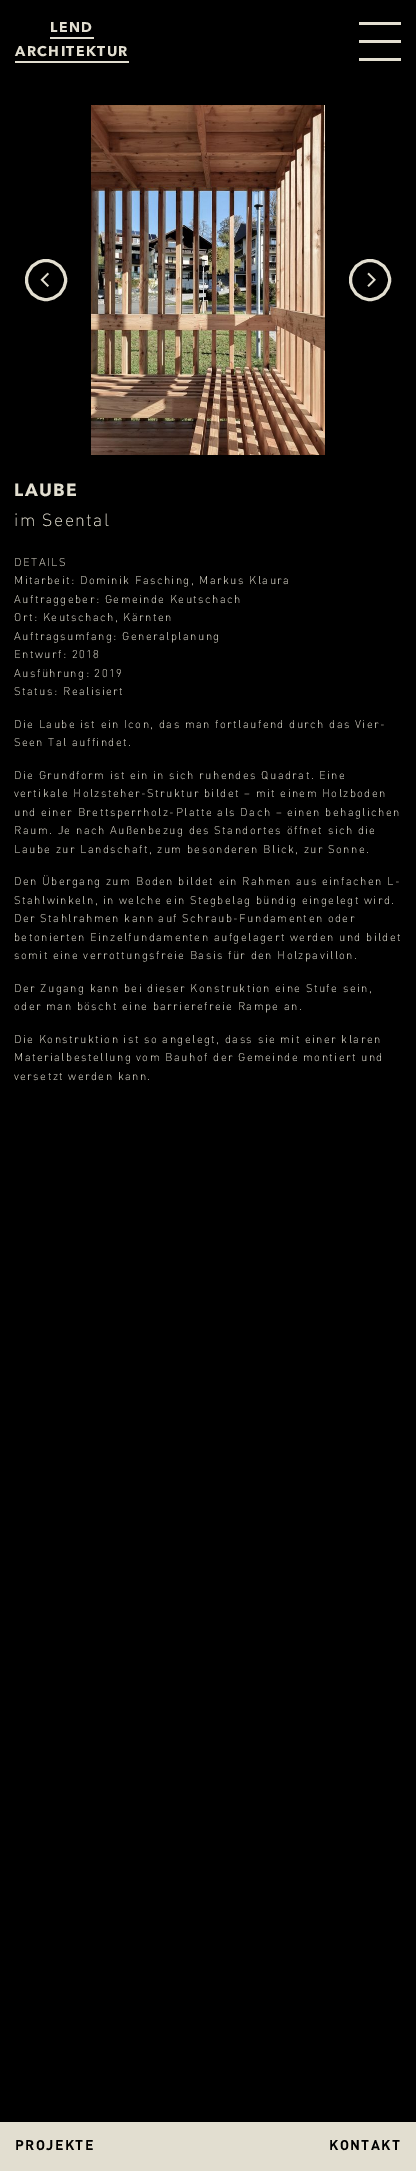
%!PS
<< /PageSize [416 2171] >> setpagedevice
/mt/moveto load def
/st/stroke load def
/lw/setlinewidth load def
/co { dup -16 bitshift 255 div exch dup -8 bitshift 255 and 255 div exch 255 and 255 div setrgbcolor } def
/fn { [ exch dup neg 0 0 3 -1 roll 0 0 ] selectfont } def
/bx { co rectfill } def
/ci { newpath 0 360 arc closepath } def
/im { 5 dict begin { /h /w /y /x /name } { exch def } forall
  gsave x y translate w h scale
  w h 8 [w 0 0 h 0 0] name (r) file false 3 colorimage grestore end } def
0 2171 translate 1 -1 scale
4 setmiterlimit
0 0 416 2171 16#000000 bx
50 37 44 2 16#E2DED0 bx
15 61 114 2 16#E2DED0 bx
359 22 42 3 16#E2DED0 bx
359 40 42 3 16#E2DED0 bx
359 58 42 3 16#E2DED0 bx
3 lw
46 280 19.5 ci st
(media/1.raw) 40 272 9 15 im
(media/2.raw) 91 105 234 350 im
370 280 19.5 ci st
(media/3.raw) 367 272 9 15 im
0 2122 416 49 16#E2DED0 bx
/AvenirNext-Bold 14 fn
50 32 mt 1.4 0 (LEND) ashow
15 56 mt 1.4 0 (ARCHITEKTUR) ashow
/AvenirNext-Bold 17.5 fn
14 496 mt 1.4 0 (LAUBE) ashow
/DIN-Light 17.5 fn
14 526 mt 1.4 0 (im Seental) ashow
/DIN-Light 11.2 fn
14 566 mt 1.4 0 (DETAILS) ashow
14 584 mt 1.4 0 (Mitarbeit: Dominik Fasching, Markus Klaura) ashow
14 603 mt 1.4 0 (Auftraggeber: Gemeinde Keutschach) ashow
14 621 mt 1.4 0 (Ort: Keutschach, Kärnten) ashow
14 640 mt 1.4 0 (Auftragsumfang: Generalplanung) ashow
14 658 mt 1.4 0 (Entwurf: 2018) ashow
14 677 mt 1.4 0 (Ausführung: 2019) ashow
14 695 mt 1.4 0 (Status: Realisiert) ashow
14 728 mt 1.4 0 (Die Laube ist ein Icon, das man fortlaufend durch das Vier-) ashow
14 746 mt 1.4 0 (Seen Tal auffindet.) ashow
14 779 mt 1.4 0 (Die Grundform ist ein in sich ruhendes Quadrat. Eine) ashow
14 797 mt 1.4 0 (vertikale Holzsteher-Struktur bildet – mit einem Holzboden) ashow
14 816 mt 1.4 0 (und einer Brettsperrholz-Platte als Dach – einen behaglichen) ashow
14 834 mt 1.4 0 (Raum. Je nach Außenbezug des Standortes öffnet sich die) ashow
14 853 mt 1.4 0 (Laube zur Landschaft, zum besonderen Blick, zur Sonne.) ashow
14 885 mt 1.4 0 (Den Übergang zum Boden bildet ein Rahmen aus einfachen L-) ashow
14 904 mt 1.4 0 (Stahlwinkeln, in welche ein Stegbelag bündig eingelegt wird.) ashow
14 922 mt 1.4 0 (Der Stahlrahmen kann auf Schraub-Fundamenten oder) ashow
14 941 mt 1.4 0 (betonierten Einzelfundamenten aufgelagert werden und bildet) ashow
14 959 mt 1.4 0 (somit eine verrottungsfreie Basis für den Holzpavillon.) ashow
14 992 mt 1.4 0 (Der Zugang kann bei dieser Konstruktion eine Stufe sein,) ashow
14 1010 mt 1.4 0 (oder man böscht eine barrierefreie Rampe an.) ashow
14 1043 mt 1.4 0 (Die Konstruktion ist so angelegt, dass sie mit einer klaren) ashow
14 1061 mt 1.4 0 (Materialbestellung vom Bauhof der Gemeinde montiert und) ashow
14 1080 mt 1.4 0 (versetzt werden kann.) ashow
/DIN-Bold 14 fn
16#000000 co
15 2150 mt 1.4 0 (PROJEKTE) ashow
329 2150 mt 1.4 0 (KONTAKT) ashow
showpage
